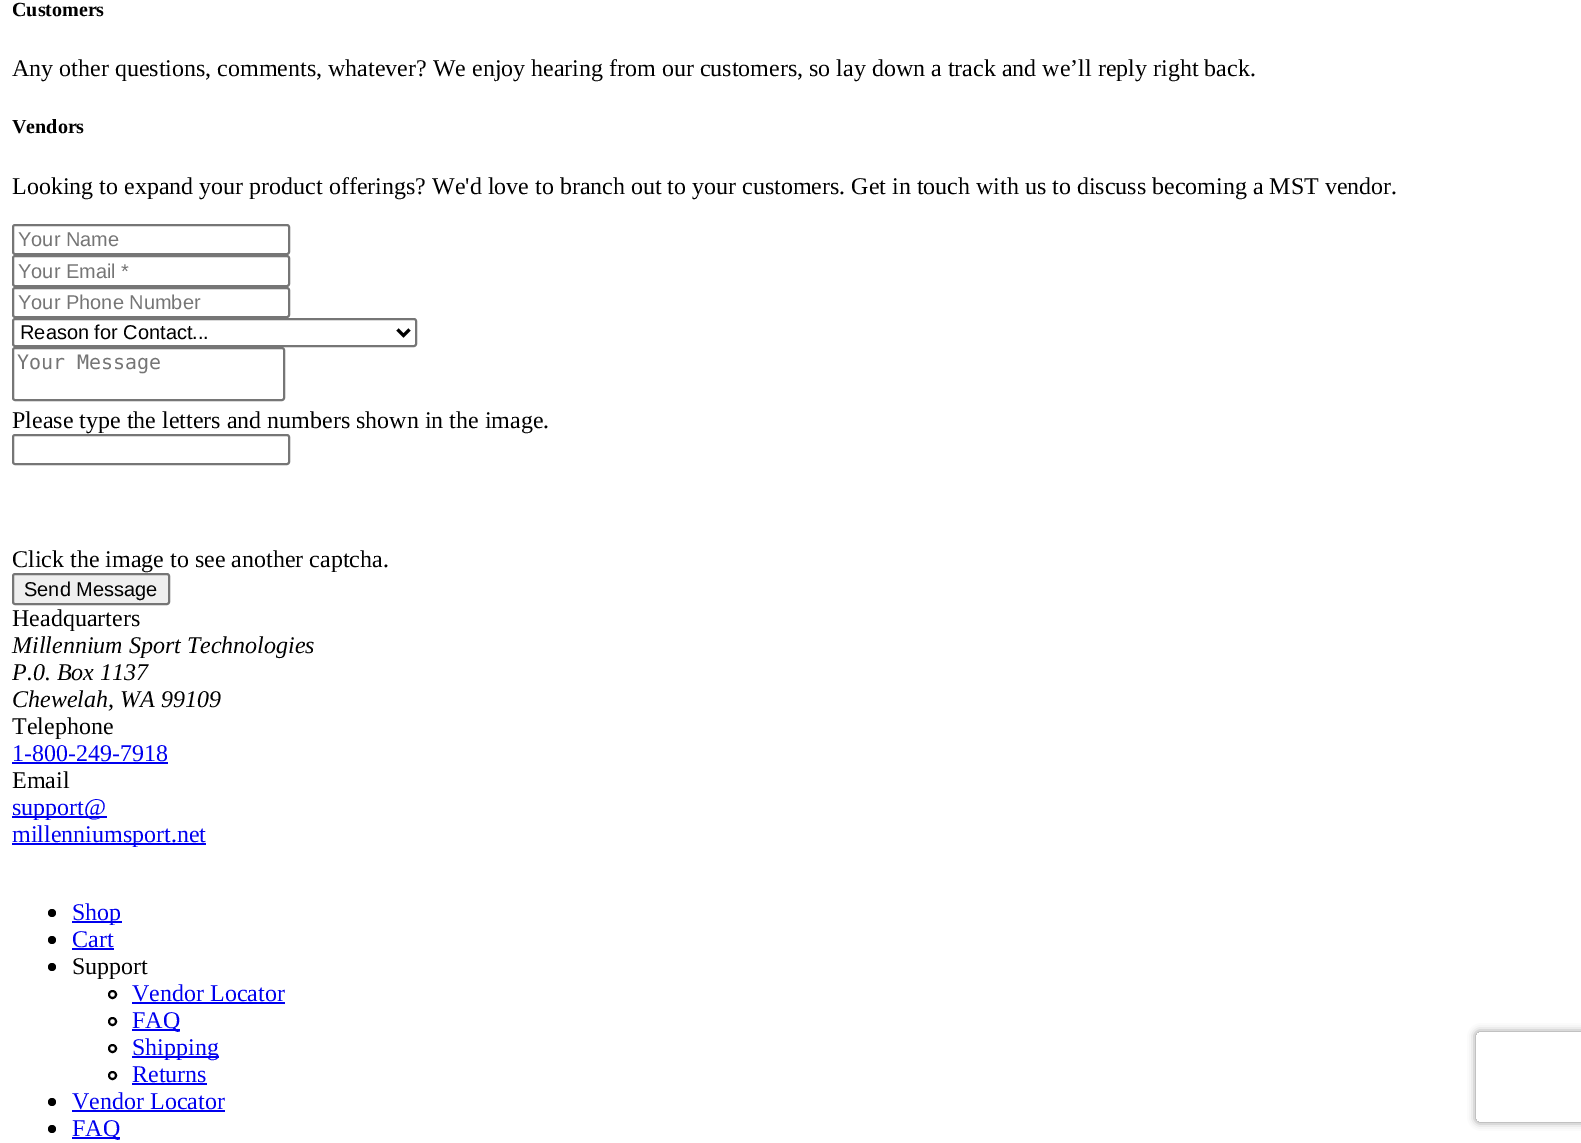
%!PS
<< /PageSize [1581 1143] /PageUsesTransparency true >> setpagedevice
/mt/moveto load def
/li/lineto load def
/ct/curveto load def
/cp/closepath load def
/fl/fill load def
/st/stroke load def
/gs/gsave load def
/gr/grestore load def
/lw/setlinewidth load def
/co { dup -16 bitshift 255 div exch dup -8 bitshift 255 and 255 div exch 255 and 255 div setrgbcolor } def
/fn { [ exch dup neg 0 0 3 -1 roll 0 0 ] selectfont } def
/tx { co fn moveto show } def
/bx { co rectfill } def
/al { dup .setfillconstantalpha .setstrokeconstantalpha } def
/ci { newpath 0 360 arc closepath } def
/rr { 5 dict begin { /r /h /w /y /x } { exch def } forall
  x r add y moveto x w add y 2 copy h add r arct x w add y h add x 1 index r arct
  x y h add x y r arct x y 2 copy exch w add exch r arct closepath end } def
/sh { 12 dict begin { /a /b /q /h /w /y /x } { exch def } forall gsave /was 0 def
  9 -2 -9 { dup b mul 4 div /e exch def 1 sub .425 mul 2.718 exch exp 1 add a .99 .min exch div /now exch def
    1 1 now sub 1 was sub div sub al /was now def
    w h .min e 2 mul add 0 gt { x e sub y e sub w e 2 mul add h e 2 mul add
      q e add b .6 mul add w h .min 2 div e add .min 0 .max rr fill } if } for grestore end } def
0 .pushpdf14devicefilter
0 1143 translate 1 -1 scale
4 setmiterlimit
0 0 1581 1143 16#FFFFFF bx
16#767676 co
2 lw
13 225 276 29 2 rr st
13 256 276 30 2 rr st
13 288 276 29 2 rr st
13 319 403 27 2 rr st
16#000000 co
3 lw
397.5 329.5 mt 403.5 335.5 li 409.5 329.5 li st
16#767676 co
2 lw
13 348 271 52 2 rr st
13 435 276 29 2 rr st
16#EFEFEF co
13 574 156 30 2 rr gs fl gr
16#767676 co
st
12 762 156 2 16#0000EE bx
12 816 95 2 16#0000EE bx
12 843 194 2 16#0000EE bx
16#000000 co
52 913 4 ci fl
72 921 50 2 16#0000EE bx
16#000000 co
52 940 4 ci fl
72 948 42 2 16#0000EE bx
16#000000 co
52 967 4 ci fl
112.5 994.5 3.5 ci st
132 1002 153 2 16#0000EE bx
16#000000 co
112.5 1021.5 3.5 ci st
132 1029 48 2 16#0000EE bx
16#000000 co
112.5 1048.5 3.5 ci st
132 1056 87 2 16#0000EE bx
16#000000 co
112.5 1075.5 3.5 ci st
132 1083 75 2 16#0000EE bx
16#000000 co
52 1102 4 ci fl
72 1110 153 2 16#0000EE bx
16#000000 co
52 1129 4 ci fl
72 1137 48 2 16#0000EE bx
gs
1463 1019 mt 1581 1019 li 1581 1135 li 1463 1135 li cp 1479 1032 mt 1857 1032 li 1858.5 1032 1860 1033.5 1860 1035 ct 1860 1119 li 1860 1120.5 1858.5 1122 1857 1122 ct 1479 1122 li 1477.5 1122 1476 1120.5 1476 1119 ct 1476 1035 li 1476 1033.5 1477.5 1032 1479 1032 ct cp eoclip newpath
16#808080 co
1476 1032 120 90 3 4 1 sh
gr
(Customers) 12 16 /LiberationSerif-Bold 20 16#000000 tx
(Any other questions, comments, whatever? We enjoy hearing from our customers, so lay down a track and we’ll reply right back.) 12 76 /LiberationSerif-Regular 24 16#000000 tx
(Vendors) 12 133 /LiberationSerif-Bold 20 16#000000 tx
(Looking to expand your product offerings? We'd love to branch out to your customers. Get in touch with us to discuss becoming a MST vendor.) 12 194 /LiberationSerif-Regular 24 16#000000 tx
(Your Name) 18 246 /LiberationSans-Regular 20 16#757575 tx
(Your Email *) 18 278 /LiberationSans-Regular 20 16#757575 tx
(Your Phone Number) 18 309 /LiberationSans-Regular 20 16#757575 tx
(Reason for Contact...) 20 339 /LiberationSans-Regular 20 16#000000 tx
(Your Message) 17 369 /DejaVuSansMono-Regular 20 16#757575 tx
(Please type the letters and numbers shown in the image.) 12 428 /LiberationSerif-Regular 24 16#000000 tx
(Click the image to see another captcha.) 12 567 /LiberationSerif-Regular 24 16#000000 tx
(Send Message) 24 596 /LiberationSans-Regular 20 16#000000 tx
(Headquarters) 12 626 /LiberationSerif-Regular 24 16#000000 tx
(Millennium Sport Technologies) 12 653 /LiberationSerif-Italic 24 16#000000 tx
(P.0. Box 1137) 12 680 /LiberationSerif-Italic 24 16#000000 tx
(Chewelah, WA 99109) 12 707 /LiberationSerif-Italic 24 16#000000 tx
(Telephone) 12 734 /LiberationSerif-Regular 24 16#000000 tx
(1-800-249-7918) 12 761 /LiberationSerif-Regular 24 16#0000EE tx
(Email) 12 788 /LiberationSerif-Regular 24 16#000000 tx
(support@) 12 815 /LiberationSerif-Regular 24 16#0000EE tx
(millenniumsport.net) 12 842 /LiberationSerif-Regular 24 16#0000EE tx
(Shop) 72 920 /LiberationSerif-Regular 24 16#0000EE tx
(Cart) 72 947 /LiberationSerif-Regular 24 16#0000EE tx
(Support) 72 974 /LiberationSerif-Regular 24 16#000000 tx
(Vendor Locator) 132 1001 /LiberationSerif-Regular 24 16#0000EE tx
(FAQ) 132 1028 /LiberationSerif-Regular 24 16#0000EE tx
(Shipping) 132 1055 /LiberationSerif-Regular 24 16#0000EE tx
(Returns) 132 1082 /LiberationSerif-Regular 24 16#0000EE tx
(Vendor Locator) 72 1109 /LiberationSerif-Regular 24 16#0000EE tx
(FAQ) 72 1136 /LiberationSerif-Regular 24 16#0000EE tx
.poppdf14devicefilter showpage
